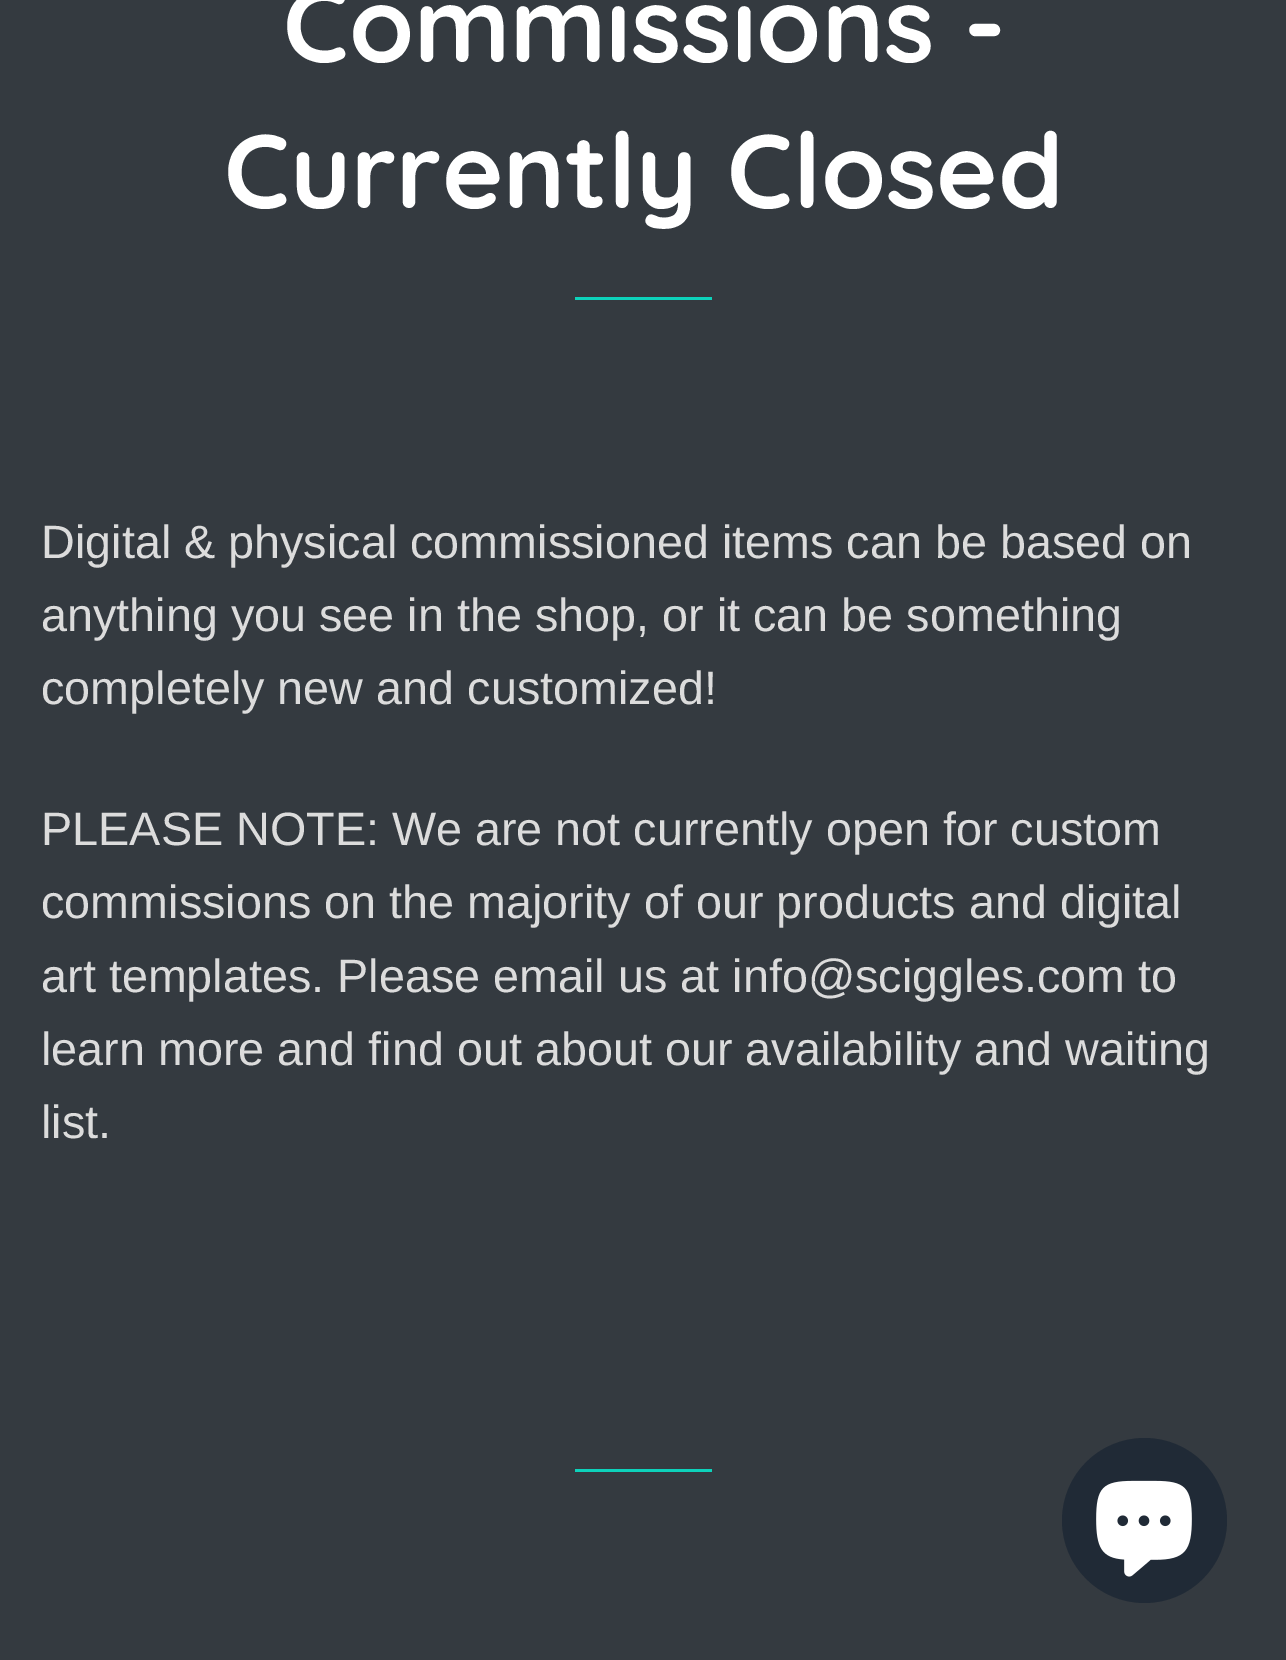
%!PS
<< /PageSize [1286 1660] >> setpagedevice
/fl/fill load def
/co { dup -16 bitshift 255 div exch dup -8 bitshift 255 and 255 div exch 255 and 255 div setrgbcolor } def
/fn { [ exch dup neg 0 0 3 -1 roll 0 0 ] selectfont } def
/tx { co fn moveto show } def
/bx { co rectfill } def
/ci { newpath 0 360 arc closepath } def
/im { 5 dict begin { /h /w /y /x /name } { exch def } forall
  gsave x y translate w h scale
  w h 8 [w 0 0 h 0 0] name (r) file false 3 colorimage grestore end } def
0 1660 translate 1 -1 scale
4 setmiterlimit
0 0 1286 1660 16#343A40 bx
575 297 137 3 16#0DD2BB bx
575 1469 137 3 16#0DD2BB bx
16#202A36 co
1144.5 1520.5 82.5 ci fl
(media/1.raw) 1096 1480 96 97 im
(Commissions -) 283 62 /Quicksand-Bold 104.5 16#FFFFFF tx
(Currently Closed) 224 208 /Quicksand-Bold 104.5 16#FFFFFF tx
(Digital & physical commissioned items can be based on) 41 558 /LiberationSans-Regular 46.75 16#DCDCDC tx
(anything you see in the shop, or it can be something) 41 631 /LiberationSans-Regular 46.75 16#DCDCDC tx
(completely new and customized!) 41 704 /LiberationSans-Regular 46.75 16#DCDCDC tx
(PLEASE NOTE: We are not currently open for custom) 41 845 /LiberationSans-Regular 46.75 16#DCDCDC tx
(commissions on the majority of our products and digital) 41 918 /LiberationSans-Regular 46.75 16#DCDCDC tx
(art templates. Please email us at info@sciggles.com to) 41 992 /LiberationSans-Regular 46.75 16#DCDCDC tx
(learn more and find out about our availability and waiting) 41 1065 /LiberationSans-Regular 46.75 16#DCDCDC tx
(list.) 41 1138 /LiberationSans-Regular 46.75 16#DCDCDC tx
showpage
